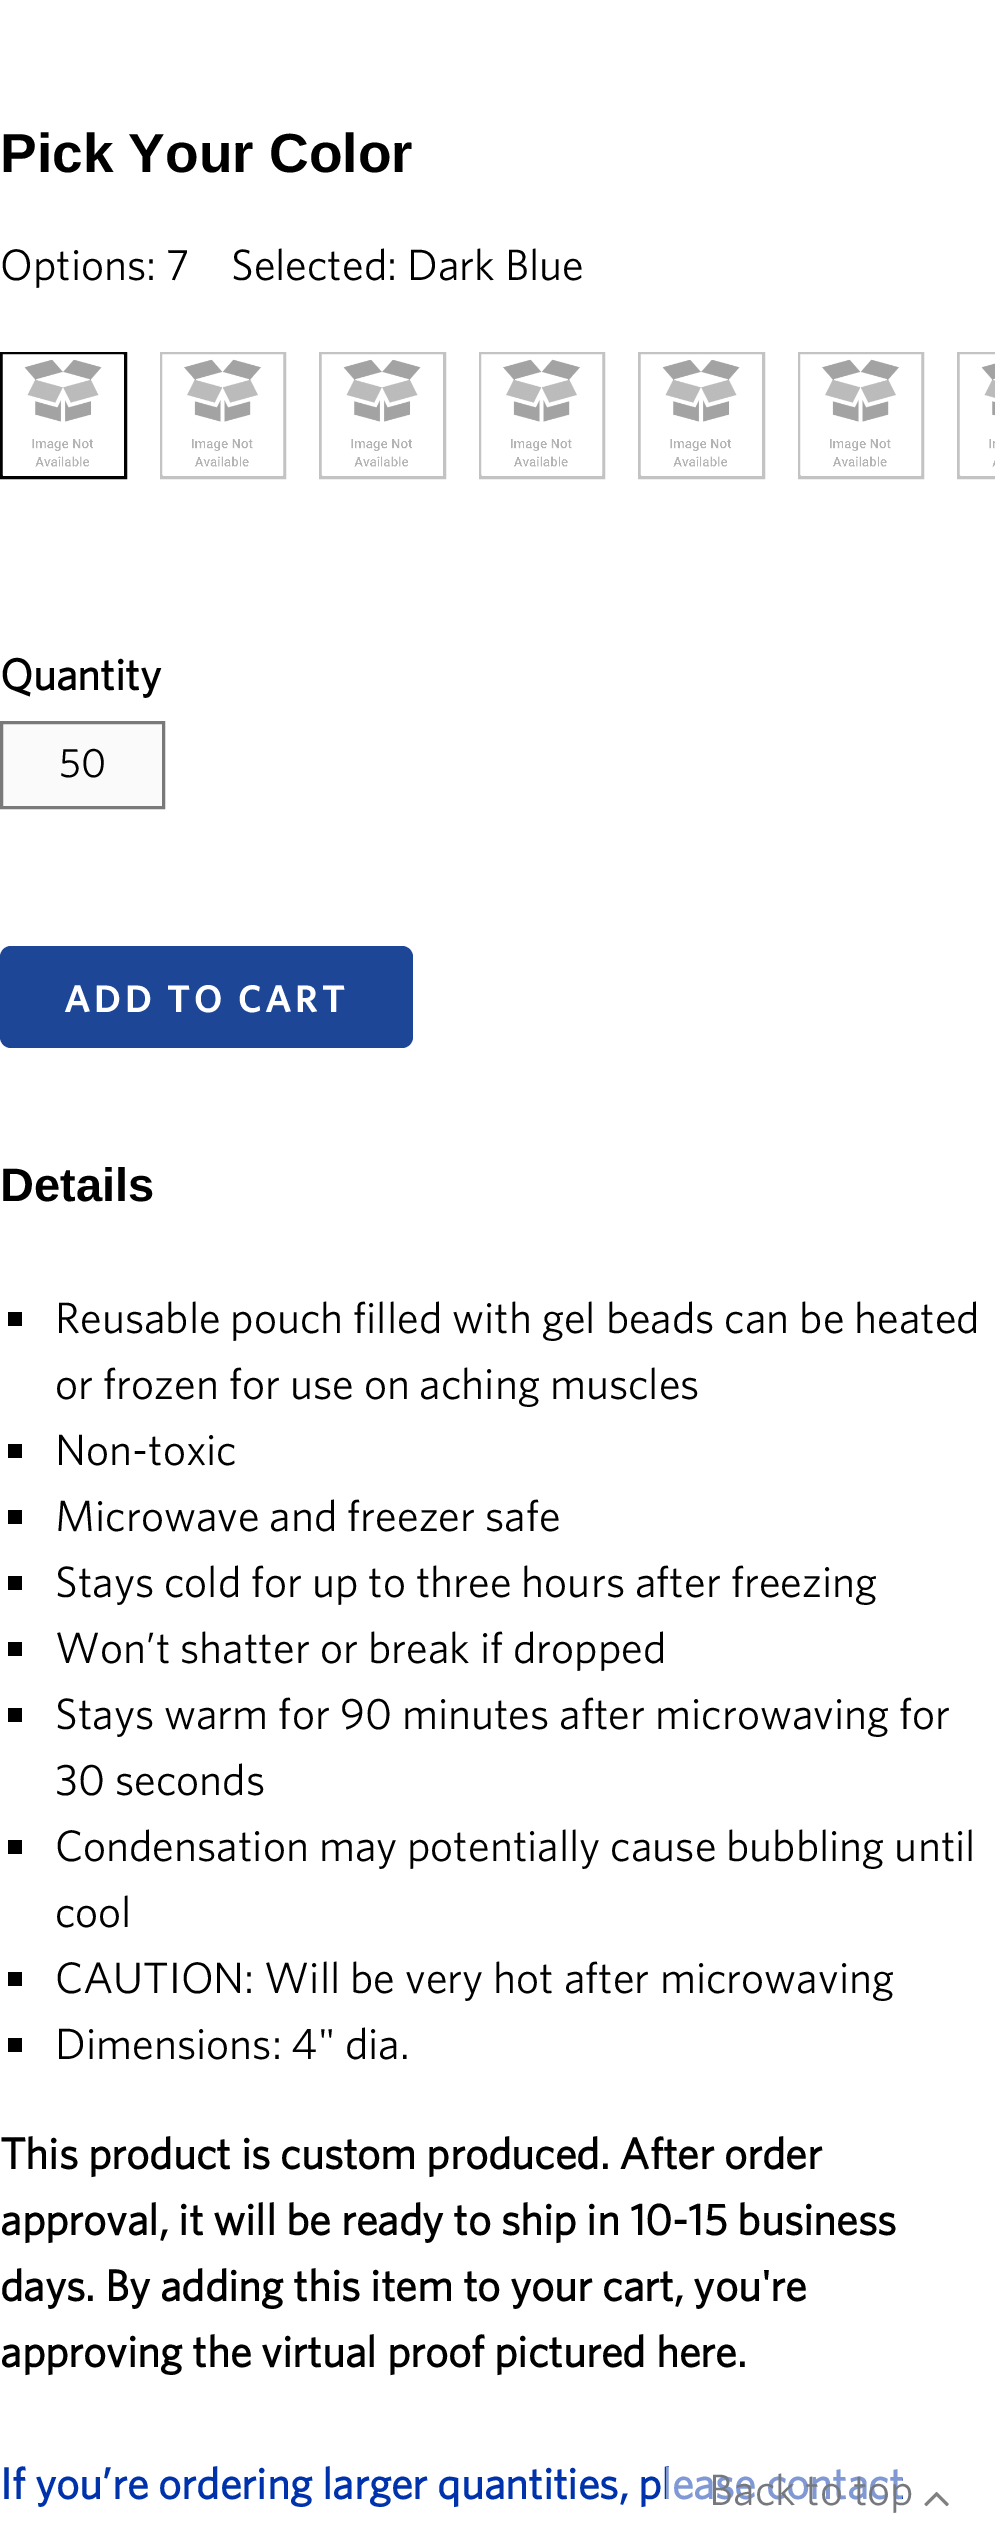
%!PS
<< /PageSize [995 2545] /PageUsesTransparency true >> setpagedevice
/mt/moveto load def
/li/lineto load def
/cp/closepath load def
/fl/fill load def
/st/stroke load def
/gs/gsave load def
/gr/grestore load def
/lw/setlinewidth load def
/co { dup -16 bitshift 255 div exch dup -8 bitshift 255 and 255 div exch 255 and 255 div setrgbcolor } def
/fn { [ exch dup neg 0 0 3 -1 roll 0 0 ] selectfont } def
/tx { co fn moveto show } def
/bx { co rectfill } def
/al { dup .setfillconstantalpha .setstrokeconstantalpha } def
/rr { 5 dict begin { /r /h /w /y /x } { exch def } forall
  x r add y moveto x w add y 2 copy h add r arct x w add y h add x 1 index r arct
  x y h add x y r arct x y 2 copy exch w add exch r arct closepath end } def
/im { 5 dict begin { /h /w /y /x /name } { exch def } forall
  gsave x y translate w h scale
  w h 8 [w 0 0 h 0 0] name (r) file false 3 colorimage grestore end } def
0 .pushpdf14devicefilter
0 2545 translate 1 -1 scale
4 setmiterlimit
0 0 995 2545 16#FFFFFF bx
16#010101 co
3 lw
1.5 353.5 124 124 rectstroke
(media/1.raw) 2 354 122 122 im
16#C3C3C3 co
161.5 353.5 123 124 rectstroke
(media/2.raw) 162 354 122 122 im
320.5 353.5 124 124 rectstroke
(media/3.raw) 321 354 122 121 im
480.5 353.5 123 124 rectstroke
(media/2.raw) 481 354 122 122 im
639.5 353.5 124 124 rectstroke
(media/3.raw) 640 354 122 121 im
799.5 353.5 123 124 rectstroke
(media/2.raw) 800 354 122 122 im
958.5 353.5 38 124 rectstroke
(media/4.raw) 959 354 36 121 im
16#FAFAFA co
1.5 722.5 mt 163.5 722.5 li 163.5 807.5 li 1.5 807.5 li cp gs fl gr
16#797979 co
st
16#1E4696 co
0 946 413 102 11 rr fl
8 1312 14 14 16#000000 bx
8 1444 14 14 16#000000 bx
8 1510 14 14 16#000000 bx
8 1576 14 14 16#000000 bx
8 1642 14 14 16#000000 bx
8 1708 14 14 16#000000 bx
8 1840 14 14 16#000000 bx
8 1972 14 14 16#000000 bx
8 2038 14 14 16#000000 bx
(media/5.raw) 924 2491 25 16 im
(Pick Your Color) 0 172 /LiberationSans-Bold 55 16#000000 tx
(Options: 7) 0 280 /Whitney-Regular 44 16#000000 tx
(Selected: Dark Blue) 231 280 /Whitney-Regular 44 16#000000 tx
(Quantity) 0 690 /Whitney-Bold 44 16#000000 tx
(50) 59 777 /Whitney-Regular 41 16#000000 tx
/Whitney-SemiBold 38.5 fn
16#FFFFFF co
64 1012 mt 3.5 0 (ADD TO CART) ashow
(Details) 0 1201 /LiberationSans-Bold 47 16#000000 tx
(Reusable pouch filled with gel beads can be heated) 55 1333 /Whitney-Regular 44 16#000000 tx
(or frozen for use on aching muscles) 55 1399 /Whitney-Regular 44 16#000000 tx
(Non-toxic) 55 1465 /Whitney-Regular 44 16#000000 tx
(Microwave and freezer safe) 55 1531 /Whitney-Regular 44 16#000000 tx
(Stays cold for up to three hours after freezing) 55 1597 /Whitney-Regular 44 16#000000 tx
(Won’t shatter or break if dropped) 55 1663 /Whitney-Regular 44 16#000000 tx
(Stays warm for 90 minutes after microwaving for) 55 1729 /Whitney-Regular 44 16#000000 tx
(30 seconds) 55 1795 /Whitney-Regular 44 16#000000 tx
(Condensation may potentially cause bubbling until) 55 1861 /Whitney-Regular 44 16#000000 tx
(cool) 55 1927 /Whitney-Regular 44 16#000000 tx
(CAUTION: Will be very hot after microwaving) 55 1993 /Whitney-Regular 44 16#000000 tx
(Dimensions: 4" dia.) 55 2059 /Whitney-Regular 44 16#000000 tx
(This product is custom produced. After order) 0 2169 /Whitney-Bold 44 16#000000 tx
(approval, it will be ready to ship in 10-15 business) 0 2235 /Whitney-Bold 44 16#000000 tx
(days. By adding this item to your cart, you're) 0 2301 /Whitney-Bold 44 16#000000 tx
(approving the virtual proof pictured here.) 0 2367 /Whitney-Bold 44 16#000000 tx
(If you’re ordering larger quantities, please contact) 0 2499 /Whitney-Bold 44 16#0033AB tx
0.5 al
666 2467 236 33 16#FFFFFF bx
1 al
(Back to top) 709 2505 /Whitney-Regular 44 16#75787D tx
.poppdf14devicefilter showpage
